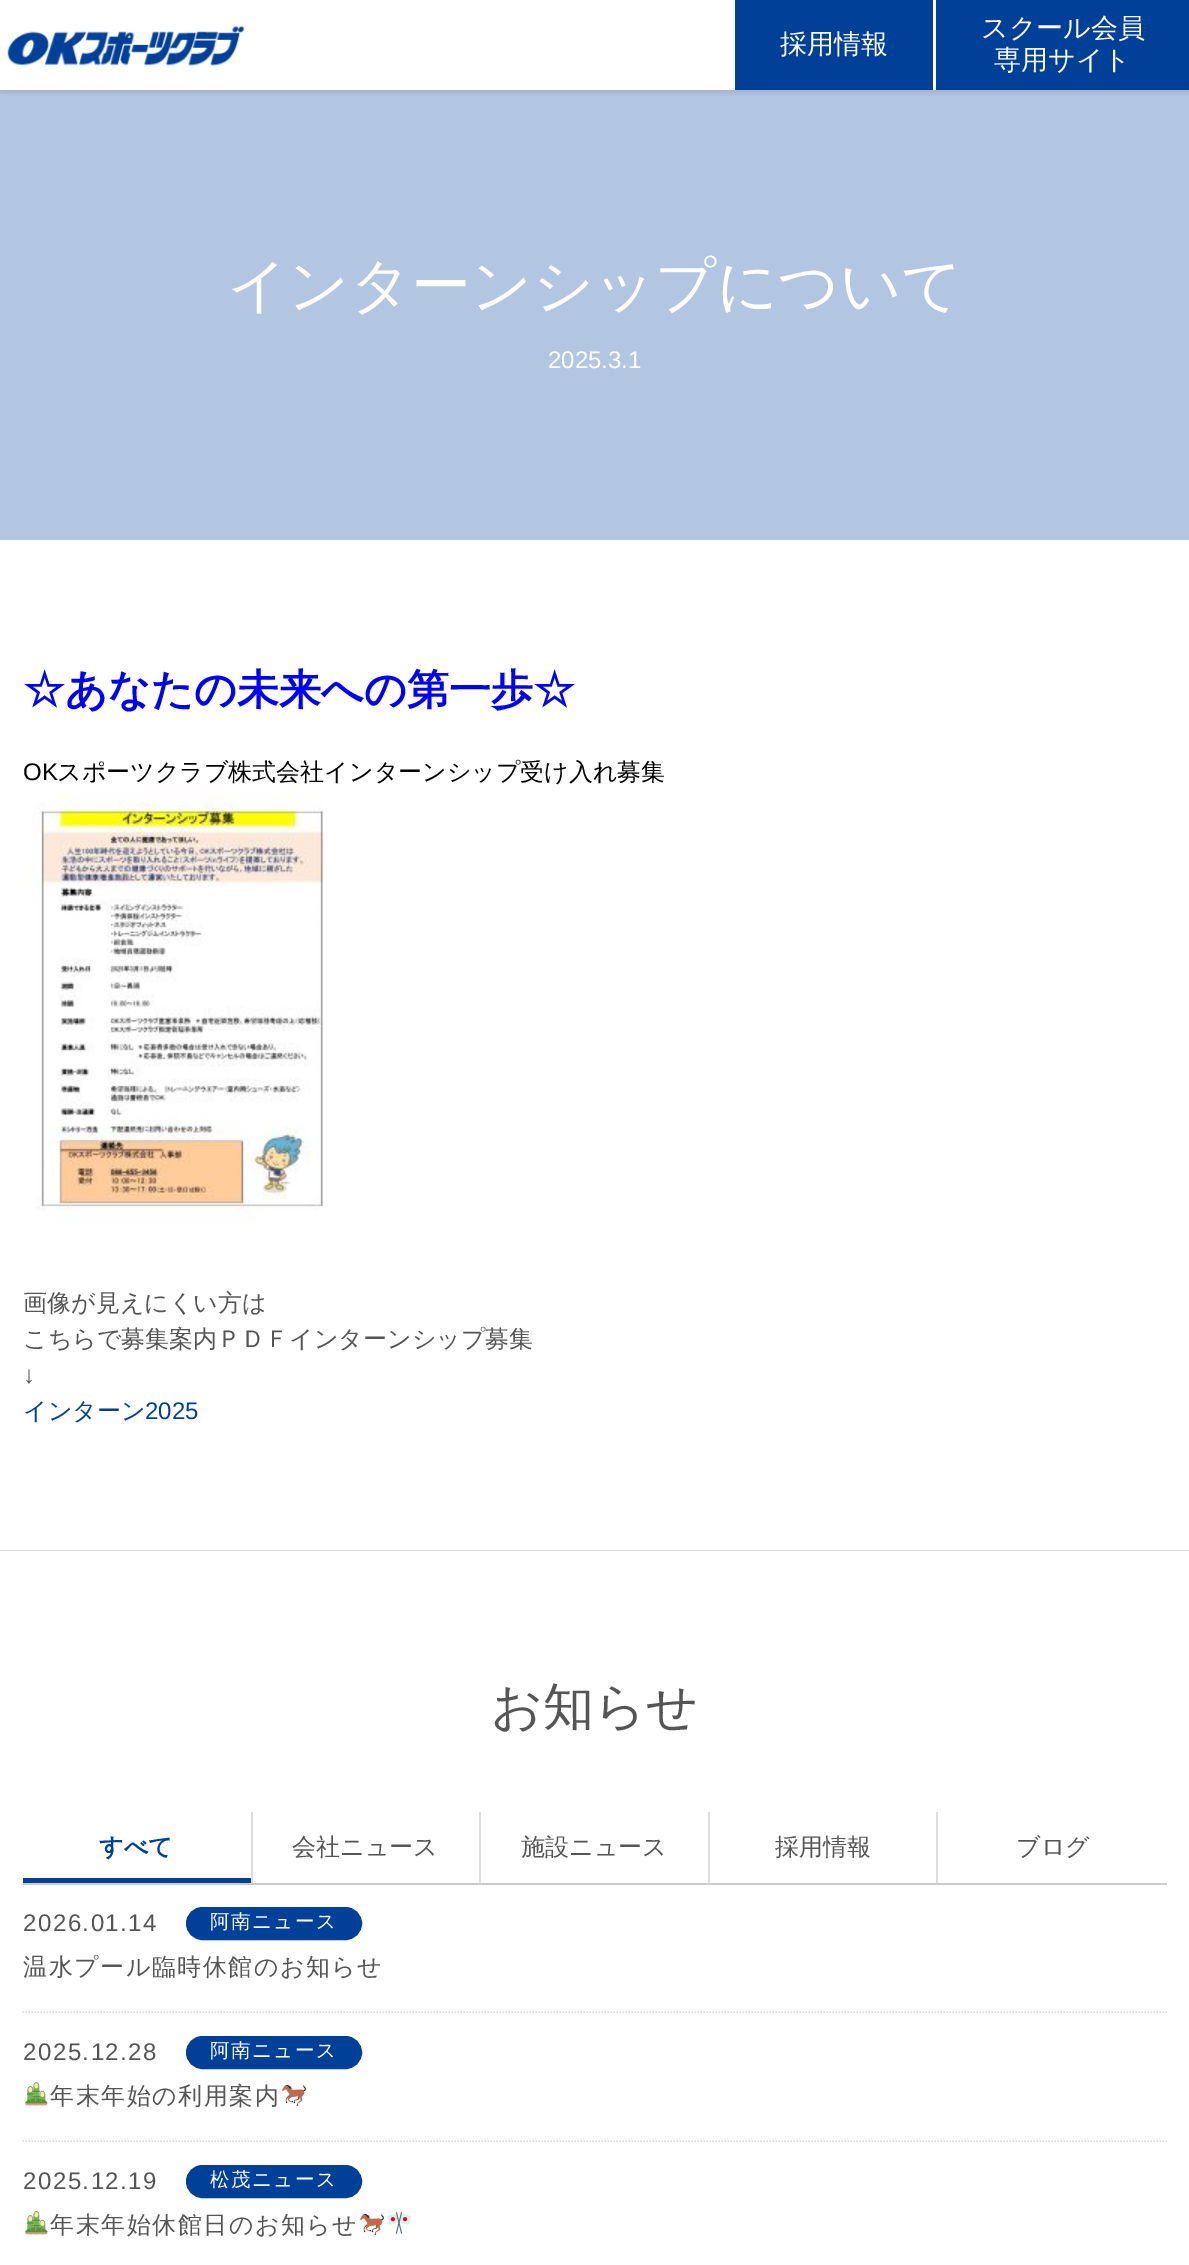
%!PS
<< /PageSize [1189 2265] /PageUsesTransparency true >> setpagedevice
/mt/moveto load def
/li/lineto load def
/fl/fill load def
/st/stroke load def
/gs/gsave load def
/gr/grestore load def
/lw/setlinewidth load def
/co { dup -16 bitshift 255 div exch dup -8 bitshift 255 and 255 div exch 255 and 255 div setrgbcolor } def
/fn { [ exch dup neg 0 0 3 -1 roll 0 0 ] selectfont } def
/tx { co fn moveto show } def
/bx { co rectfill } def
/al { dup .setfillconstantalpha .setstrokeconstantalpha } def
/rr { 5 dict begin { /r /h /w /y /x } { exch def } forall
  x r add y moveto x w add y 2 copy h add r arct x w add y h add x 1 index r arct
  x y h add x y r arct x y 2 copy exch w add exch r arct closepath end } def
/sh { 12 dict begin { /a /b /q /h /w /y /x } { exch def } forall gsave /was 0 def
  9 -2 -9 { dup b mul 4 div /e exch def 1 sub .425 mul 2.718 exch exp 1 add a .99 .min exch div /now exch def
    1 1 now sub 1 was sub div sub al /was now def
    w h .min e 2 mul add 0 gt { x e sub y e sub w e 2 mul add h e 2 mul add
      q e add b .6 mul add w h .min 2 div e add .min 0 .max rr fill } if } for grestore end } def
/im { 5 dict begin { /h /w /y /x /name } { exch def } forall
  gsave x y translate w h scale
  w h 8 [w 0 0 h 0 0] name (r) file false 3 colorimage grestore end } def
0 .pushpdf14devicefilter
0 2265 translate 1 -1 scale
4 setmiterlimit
0 0 1189 2265 16#FFFFFF bx
0 90 1189 450 16#B3C6E1 bx
gs
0 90 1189 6 rectclip
16#000000 co
0 0 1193 93 0 3 .1 sh
gr
(media/1.raw) 7 25 238 41 im
735 0 198 90 16#014099 bx
936 0 253 90 16#014099 bx
(media/2.raw) 28 790 297 433 im
0 1550 1189 1 16#DDDDDD bx
23 1883 1144 2 16#CCCCCC bx
251 1812 2 71 16#DDDDDD bx
23 1878 228 5 16#014099 bx
479 1812 2 71 16#DDDDDD bx
708 1812 2 71 16#DDDDDD bx
936 1812 2 71 16#DDDDDD bx
1.5 lw
[1.5 1.5] 0 setdash
22.5 2012 mt 1167 2012 li st
16#014099 co
187 1908 174 31 15.5 rr gs fl gr
2 lw
[] 0 setdash
st
16#DDDDDD co
1.5 lw
[1.5 1.5] 0 setdash
22.5 2141 mt 1167 2141 li st
16#014099 co
187 2037 174 31 15.5 rr gs fl gr
2 lw
[] 0 setdash
st
(media/3.raw) 25 2082 23 24 im
(media/4.raw) 282 2084 24 22 im
187 2166 174 31 15.5 rr gs fl gr
st
(media/3.raw) 25 2211 23 24 im
(media/4.raw) 360 2213 24 22 im
(media/5.raw) 387 2212 24 22 im
(採用情報) 780 53 /WenQuanYiZenHei-Medium 27 16#FFFFFF tx
(スクール会員) 981 37 /WenQuanYiZenHei-Medium 27 16#FFFFFF tx
(専用サイト) 994 69 /WenQuanYiZenHei-Medium 27 16#FFFFFF tx
(インターンシップについて) 227 306 /WenQuanYiZenHei-Medium 60 16#FFFFFF tx
(2025.3.1) 548 368 /LiberationSans-Regular 24 16#FFFFFF tx
(☆あなたの未来への第一歩☆) 23 704 /WenQuanYiZenHei-Bold 42 16#0000FF tx
(OK) 23 780 /LiberationSans-Regular 24 16#000000 tx
(スポーツクラブ株式会社インターンシップ受け入れ募集) 57 780 /WenQuanYiZenHei-Medium 24 16#000000 tx
(画像が見えにくい方は) 23 1311 /WenQuanYiZenHei-Medium 24 16#555555 tx
(こちらで募集案内ＰＤＦインターンシップ募集) 23 1347 /WenQuanYiZenHei-Medium 24 16#555555 tx
(↓) 23 1383 /LiberationSans-Regular 24 16#555555 tx
(インターン) 23 1419 /WenQuanYiZenHei-Medium 24 16#014099 tx
(2025) 145 1419 /LiberationSans-Regular 24 16#014099 tx
(お知らせ) 491 1724 /WenQuanYiZenHei-Medium 51 16#555555 tx
(すべて) 99 1855 /WenQuanYiZenHei-Bold 24 16#014099 tx
(会社ニュース) 292 1855 /WenQuanYiZenHei-Medium 24 16#555555 tx
(施設ニュース) 521 1855 /WenQuanYiZenHei-Medium 24 16#555555 tx
(採用情報) 775 1855 /WenQuanYiZenHei-Medium 24 16#555555 tx
(ブログ) 1016 1855 /WenQuanYiZenHei-Medium 24 16#555555 tx
/LiberationSans-Regular 24 fn
23 1931 mt 1.5 0 (2026.01.14) ashow
/WenQuanYiZenHei-Medium 19.5 fn
16#FFFFFF co
210 1928 mt 1.5 0 (阿南ニュース) ashow
/WenQuanYiZenHei-Medium 24 fn
16#555555 co
23 1975 mt 1.5 0 (温水プール臨時休館のお知らせ) ashow
/LiberationSans-Regular 24 fn
23 2060 mt 1.5 0 (2025.12.28) ashow
/WenQuanYiZenHei-Medium 19.5 fn
16#FFFFFF co
210 2057 mt 1.5 0 (阿南ニュース) ashow
/WenQuanYiZenHei-Medium 24 fn
16#555555 co
50 2104 mt 1.5 0 (年末年始の利用案内) ashow
/LiberationSans-Regular 24 fn
23 2189 mt 1.5 0 (2025.12.19) ashow
/WenQuanYiZenHei-Medium 19.5 fn
16#FFFFFF co
210 2186 mt 1.5 0 (松茂ニュース) ashow
/WenQuanYiZenHei-Medium 24 fn
16#555555 co
50 2233 mt 1.5 0 (年末年始休館日のお知らせ) ashow
.poppdf14devicefilter showpage
